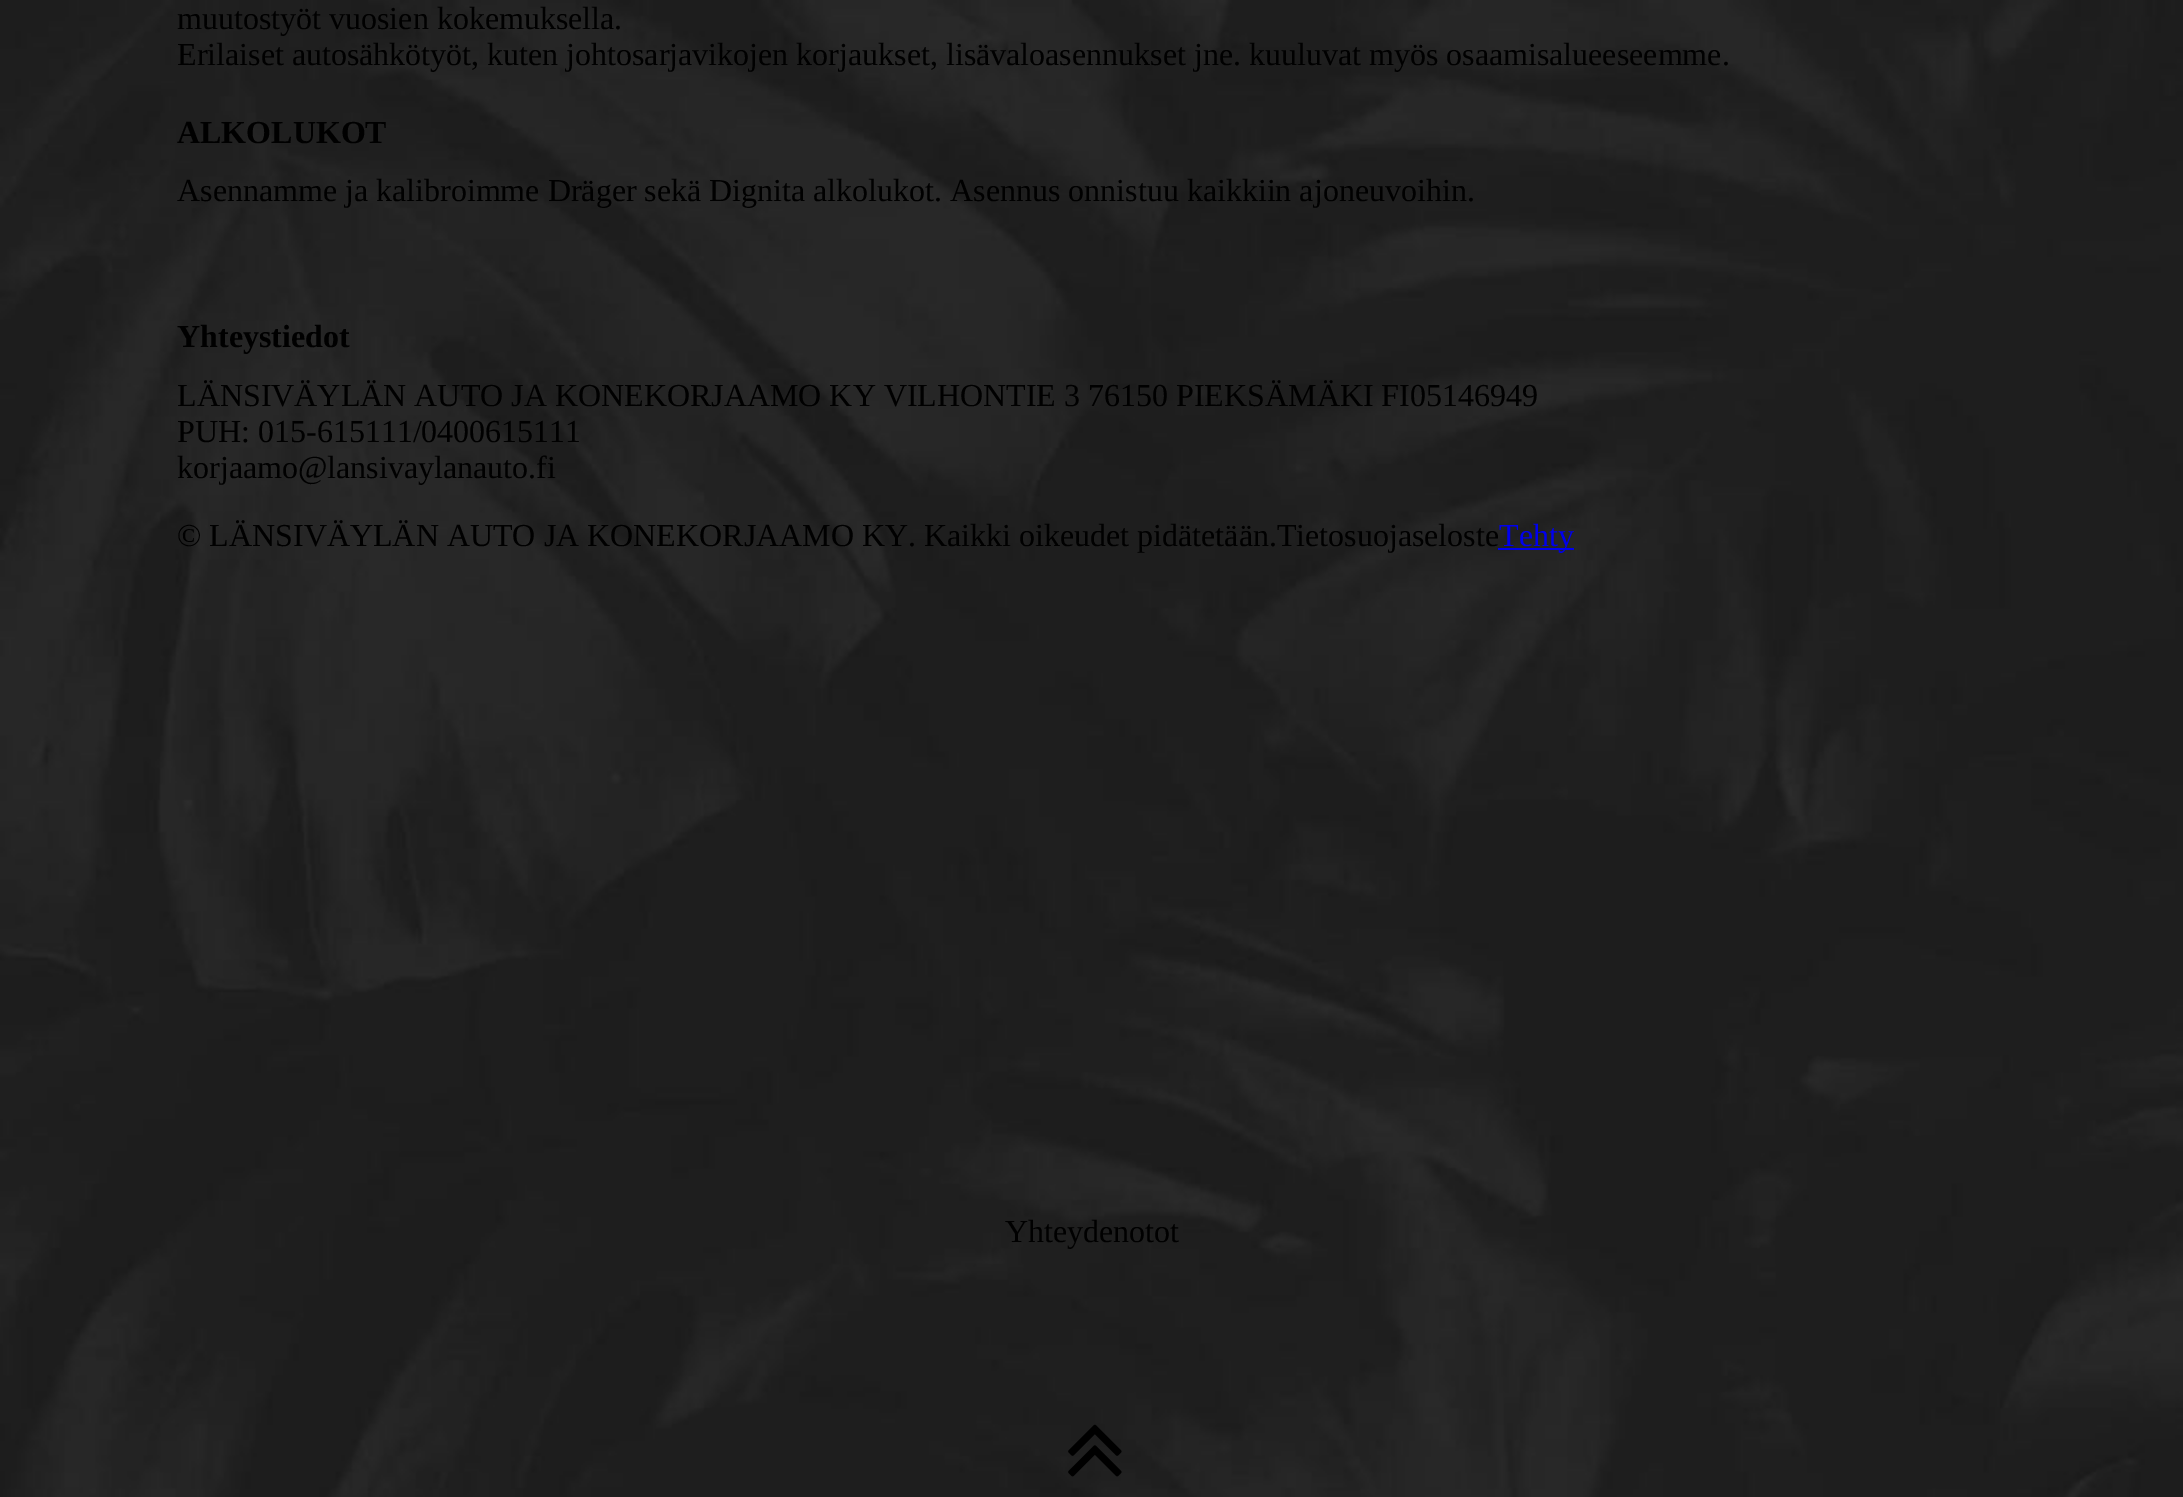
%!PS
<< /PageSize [2183 1497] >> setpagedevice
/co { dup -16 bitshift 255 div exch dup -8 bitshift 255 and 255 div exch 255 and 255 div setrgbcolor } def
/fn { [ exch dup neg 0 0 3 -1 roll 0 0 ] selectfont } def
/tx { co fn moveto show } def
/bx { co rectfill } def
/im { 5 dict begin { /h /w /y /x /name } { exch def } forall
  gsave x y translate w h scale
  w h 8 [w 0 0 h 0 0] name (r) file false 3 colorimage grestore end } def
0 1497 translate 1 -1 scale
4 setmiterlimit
0 0 2183 1497 16#FFFFFF bx
(media/1.raw) 0 0 2183 1497 im
1498 548 76 2 16#0000EE bx
(media/2.raw) 1068 1424 54 53 im
(muutostyöt vuosien kokemuksella.) 177 29 /LiberationSerif-Regular 32 16#000000 tx
(Erilaiset autosähkötyöt, kuten johtosarjavikojen korjaukset, lisävaloasennukset jne. kuuluvat myös osaamisalueeseemme.) 177 65 /LiberationSerif-Regular 32 16#000000 tx
(ALKOLUKOT) 177 143 /LiberationSerif-Bold 32 16#000000 tx
(Asennamme ja kalibroimme Dräger sekä Dignita alkolukot. Asennus onnistuu kaikkiin ajoneuvoihin.) 177 201 /LiberationSerif-Regular 32 16#000000 tx
(Yhteystiedot) 177 347 /LiberationSerif-Bold 32 16#000000 tx
(LÄNSIVÄYLÄN AUTO JA KONEKORJAAMO KY VILHONTIE 3 76150 PIEKSÄMÄKI FI05146949) 177 406 /LiberationSerif-Regular 32 16#000000 tx
(PUH: 015-615111/0400615111) 177 442 /LiberationSerif-Regular 32 16#000000 tx
(korjaamo@lansivaylanauto.fi) 177 478 /LiberationSerif-Regular 32 16#000000 tx
(© LÄNSIVÄYLÄN AUTO JA KONEKORJAAMO KY. Kaikki oikeudet pidätetään.Tietosuojaseloste) 177 546 /LiberationSerif-Regular 32 16#000000 tx
(Tehty) 1499 546 /LiberationSerif-Regular 32 16#0000EE tx
(Yhteydenotot) 1005 1242 /LiberationSerif-Regular 32 16#000000 tx
showpage
